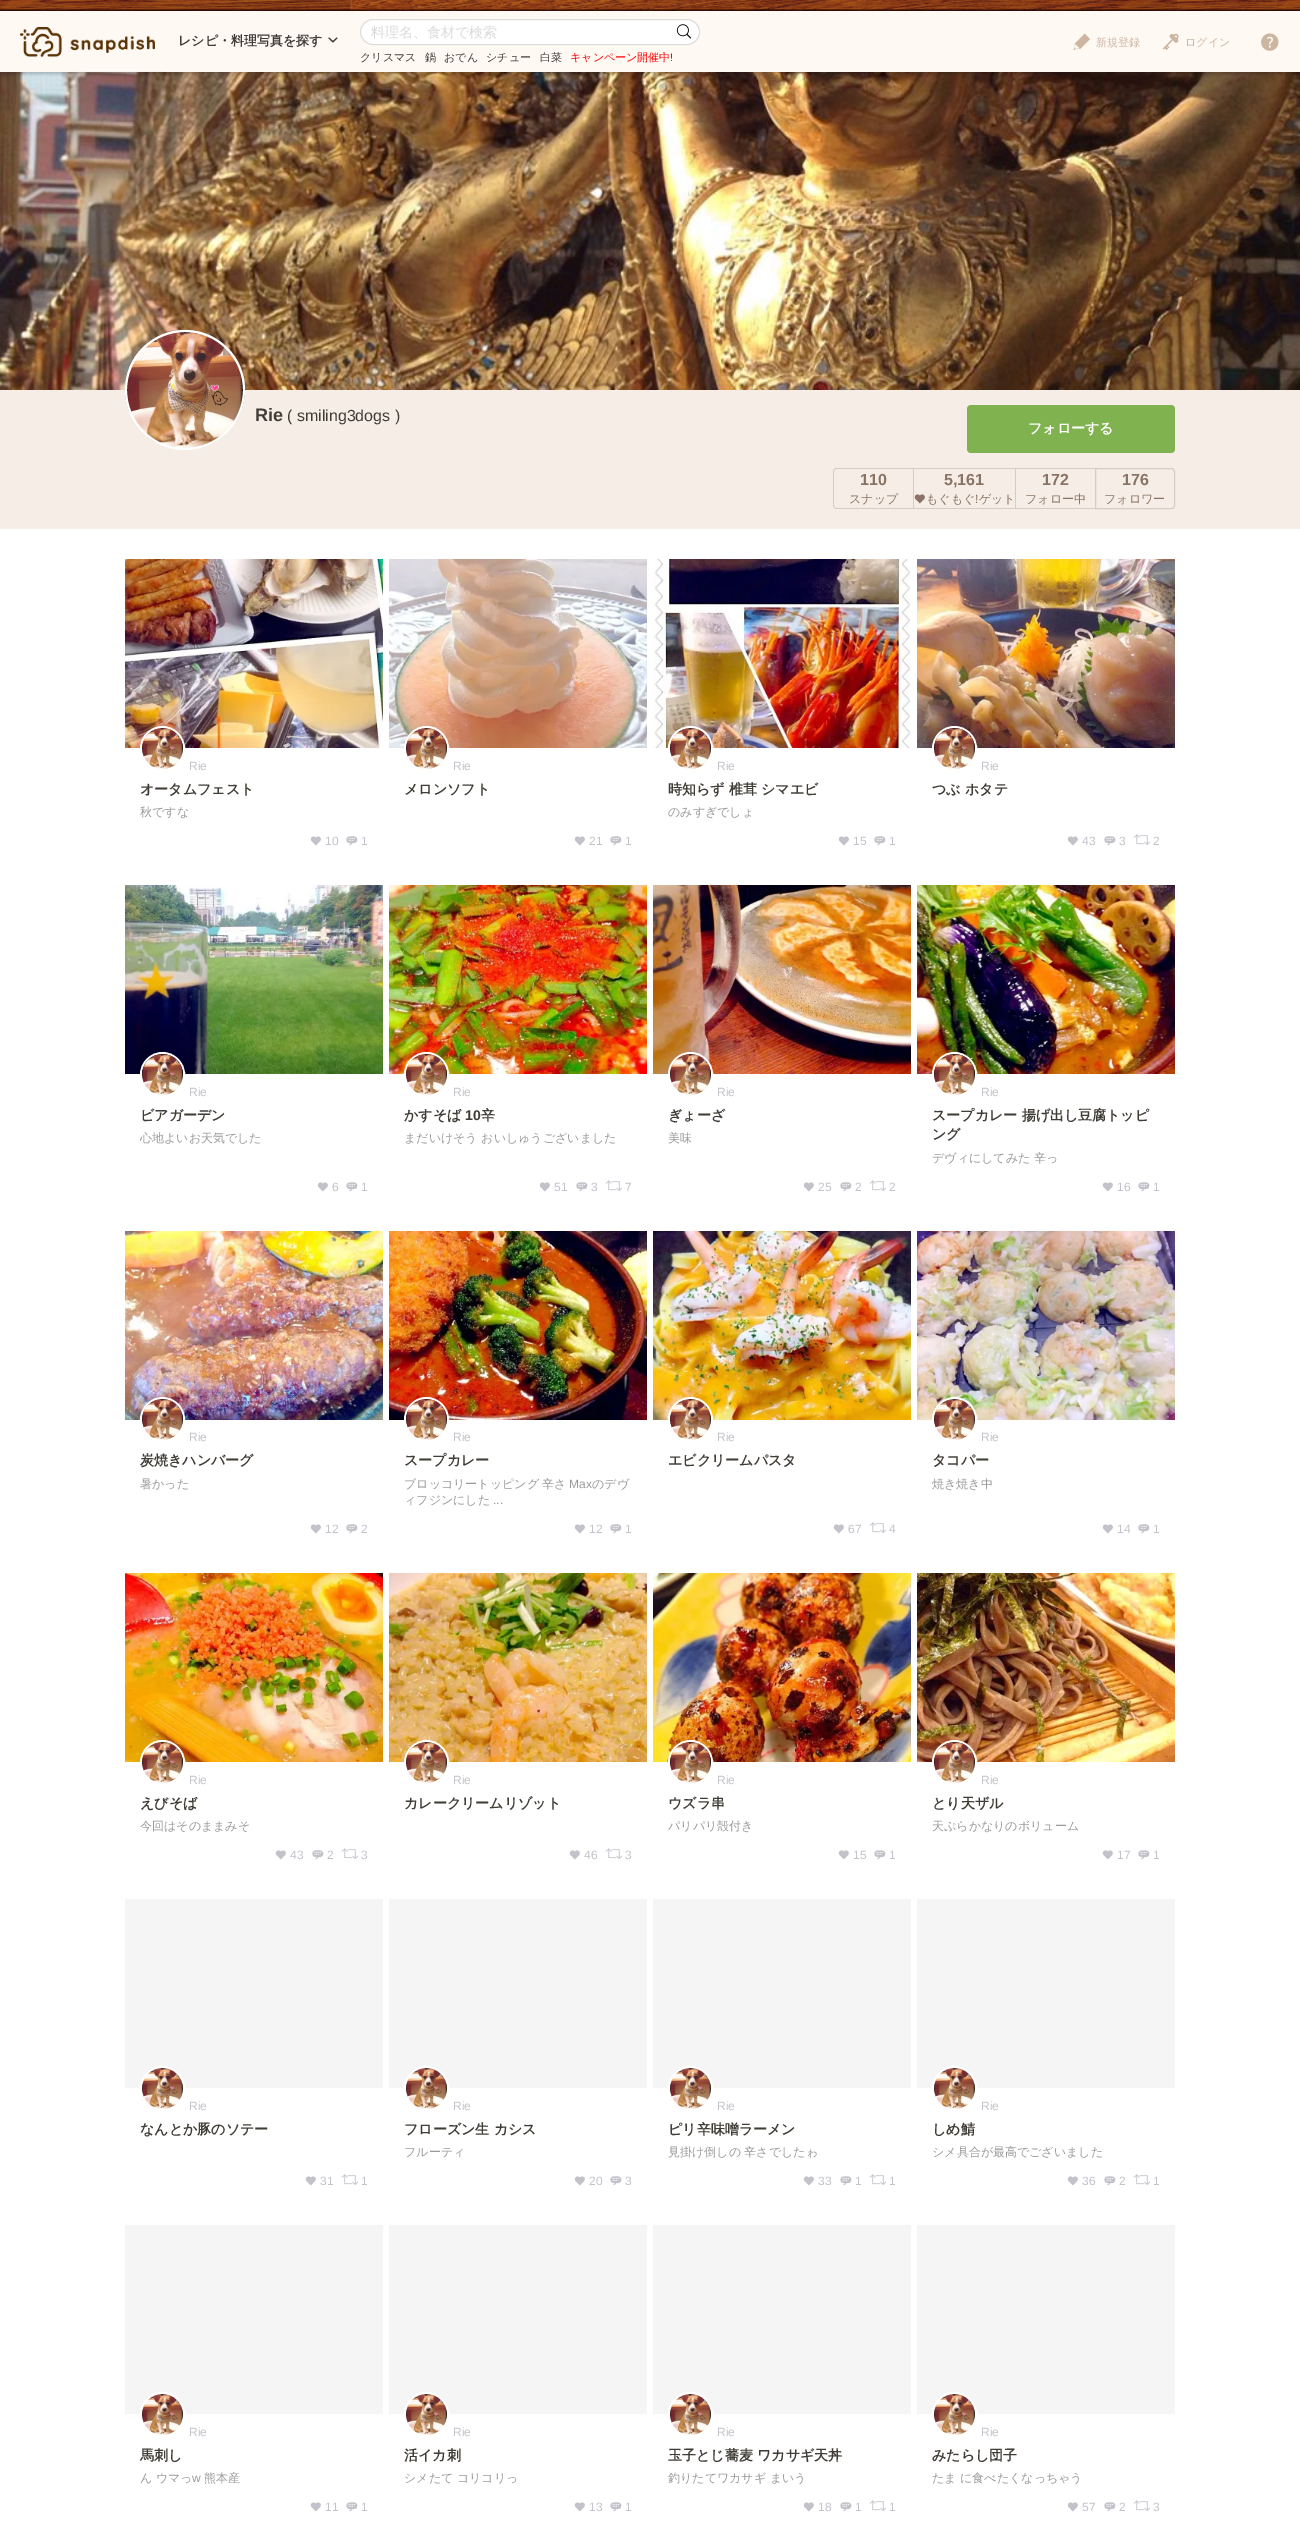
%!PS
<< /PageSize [1300 2540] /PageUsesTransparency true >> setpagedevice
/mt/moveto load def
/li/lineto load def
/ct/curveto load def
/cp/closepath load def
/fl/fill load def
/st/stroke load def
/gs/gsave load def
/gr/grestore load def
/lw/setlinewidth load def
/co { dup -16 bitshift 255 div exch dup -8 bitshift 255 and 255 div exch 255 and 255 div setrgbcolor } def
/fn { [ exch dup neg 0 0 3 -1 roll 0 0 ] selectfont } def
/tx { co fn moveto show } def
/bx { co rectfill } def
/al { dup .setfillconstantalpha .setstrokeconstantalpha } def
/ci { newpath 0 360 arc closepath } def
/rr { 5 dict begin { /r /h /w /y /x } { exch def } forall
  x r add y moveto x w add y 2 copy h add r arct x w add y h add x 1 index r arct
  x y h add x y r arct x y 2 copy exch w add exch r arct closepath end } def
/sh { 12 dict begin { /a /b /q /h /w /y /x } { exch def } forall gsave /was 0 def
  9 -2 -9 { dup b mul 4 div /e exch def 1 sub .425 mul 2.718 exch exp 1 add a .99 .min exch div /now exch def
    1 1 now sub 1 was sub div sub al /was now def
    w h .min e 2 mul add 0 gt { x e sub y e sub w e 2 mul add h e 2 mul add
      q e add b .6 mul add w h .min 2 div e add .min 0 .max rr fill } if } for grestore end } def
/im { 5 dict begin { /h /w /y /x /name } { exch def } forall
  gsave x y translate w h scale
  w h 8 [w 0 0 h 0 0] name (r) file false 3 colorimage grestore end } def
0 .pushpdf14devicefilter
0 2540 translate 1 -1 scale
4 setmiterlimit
0 0 1300 2540 16#FFFFFF bx
(media/8.raw) 0 71 1300 319 im
16#000000 co
0 1 1300 73 0 1.5 .2 sh
(media/1.raw) 0 0 1300 72 im
(media/2.raw) 20 27 135 30 im
(media/3.raw) 328 37 10 6 im
16#FFFFFF co
360.5 19.5 339 25 12.5 rr gs fl gr
16#DDDDDD co
st
(media/4.raw) 676 24 16 15 im
(media/5.raw) 1073 33 17 18 im
(media/6.raw) 1162 33 17 18 im
(media/7.raw) 1261 33 18 18 im
0 390 1300 139 16#F6EEE6 bx
gs
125 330 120 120 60 rr clip newpath
16#000000 co
125 330 120 120 60 1.5 .3 sh
gr
(media/9.raw) 125 330 120 120 im
16#FFFFFF co
185 330 mt 152 330 125 357 125 390 ct 125 423 152 450 185 450 ct 218 450 245 423 245 390 ct 245 357 218 330 185 330 ct cp 185 332 mt 153 332 127 358 127 390 ct 127 422 153 448 185 448 ct 217 448 243 422 243 390 ct 243 358 217 332 185 332 ct cp eofill
16#80B350 co
967 405 208 48 4 rr fl
16#D6CCC0 co
837 468 mt 913 468 li 913 509 li 837 509 li 835 509 833 507 833 505 ct 833 472 li 833 470 835 468 837 468 ct cp 837 469 mt 913 469 li 913 508 li 837 508 li 835 508 834 507 834 505 ct 834 472 li 834 470 835 469 837 469 ct cp eofill
913 468 182 1 16#D6CCC0 bx
913 508 182 1 16#D6CCC0 bx
913 468 1 41 16#D6CCC0 bx
(media/10.raw) 914 494 11 10 im
1015 468 1 41 16#D6CCC0 bx
1095.5 468.5 mt 1171 468.5 li 1173 468.5 1174.5 470 1174.5 472 ct 1174.5 505 li 1174.5 507 1173 508.5 1171 508.5 ct 1095.5 508.5 li cp st
(media/11.raw) 125 559 258 189 im
16#FFFFFF co
2 lw
162.5 748.5 21.5 ci st
(media/12.raw) 142 728 41 41 im
(media/13.raw) 310 836 11 10 im
(media/14.raw) 346 836 12 10 im
(media/15.raw) 389 559 258 189 im
426.5 748.5 21.5 ci st
(media/16.raw) 406 728 41 41 im
(media/13.raw) 574 836 11 10 im
(media/14.raw) 610 836 12 10 im
(media/17.raw) 653 559 258 189 im
690.5 748.5 21.5 ci st
(media/18.raw) 670 728 41 41 im
(media/13.raw) 838 836 11 10 im
(media/14.raw) 874 836 12 10 im
(media/19.raw) 917 559 258 189 im
954.5 748.5 21.5 ci st
(media/20.raw) 934 728 41 41 im
(media/13.raw) 1067 836 11 10 im
(media/14.raw) 1104 836 12 10 im
(media/21.raw) 1133 834 18 11 im
(media/22.raw) 125 885 258 189 im
162.5 1074.5 21.5 ci st
(media/23.raw) 142 1054 41 41 im
(media/13.raw) 317 1182 11 10 im
(media/14.raw) 346 1182 12 10 im
(media/24.raw) 389 885 258 189 im
426.5 1074.5 21.5 ci st
(media/25.raw) 406 1054 41 41 im
(media/13.raw) 539 1182 11 10 im
(media/14.raw) 576 1182 12 10 im
(media/21.raw) 605 1180 18 11 im
(media/26.raw) 653 885 258 189 im
690.5 1074.5 21.5 ci st
(media/27.raw) 670 1054 41 41 im
(media/13.raw) 803 1182 11 10 im
(media/14.raw) 840 1182 12 10 im
(media/21.raw) 869 1180 18 11 im
(media/28.raw) 917 885 258 189 im
954.5 1074.5 21.5 ci st
(media/29.raw) 934 1054 41 41 im
(media/13.raw) 1102 1182 11 10 im
(media/14.raw) 1138 1182 12 10 im
(media/30.raw) 125 1231 258 189 im
162.5 1419.5 21.5 ci st
(media/31.raw) 142 1399 41 41 im
(media/13.raw) 310 1524 11 10 im
(media/14.raw) 346 1524 12 10 im
(media/32.raw) 389 1231 258 189 im
426.5 1419.5 21.5 ci st
(media/33.raw) 406 1399 41 41 im
(media/13.raw) 574 1524 11 10 im
(media/14.raw) 610 1524 12 10 im
(media/34.raw) 653 1231 258 189 im
690.5 1419.5 21.5 ci st
(media/35.raw) 670 1399 41 41 im
(media/13.raw) 833 1524 11 10 im
(media/21.raw) 869 1522 18 11 im
(media/36.raw) 917 1231 258 189 im
954.5 1419.5 21.5 ci st
(media/37.raw) 934 1399 41 41 im
(media/13.raw) 1102 1524 11 10 im
(media/14.raw) 1138 1524 12 10 im
(media/38.raw) 125 1573 258 189 im
162.5 1762.5 21.5 ci st
(media/39.raw) 142 1742 41 41 im
(media/13.raw) 275 1850 11 10 im
(media/14.raw) 312 1850 12 10 im
(media/21.raw) 341 1848 18 11 im
(media/40.raw) 389 1573 258 189 im
426.5 1762.5 21.5 ci st
(media/41.raw) 406 1742 41 41 im
(media/13.raw) 569 1850 11 10 im
(media/21.raw) 605 1848 18 11 im
(media/42.raw) 653 1573 258 189 im
690.5 1762.5 21.5 ci st
(media/43.raw) 670 1742 41 41 im
(media/13.raw) 838 1850 11 10 im
(media/14.raw) 874 1850 12 10 im
(media/44.raw) 917 1573 258 189 im
954.5 1762.5 21.5 ci st
(media/45.raw) 934 1742 41 41 im
(media/13.raw) 1102 1850 11 10 im
(media/14.raw) 1138 1850 12 10 im
125 1899 258 189 16#F5F5F5 bx
16#FFFFFF co
162.5 2088.5 21.5 ci st
(media/46.raw) 142 2068 41 41 im
(media/13.raw) 305 2176 11 10 im
(media/21.raw) 341 2174 18 11 im
389 1899 258 189 16#F5F5F5 bx
16#FFFFFF co
426.5 2088.5 21.5 ci st
(media/47.raw) 406 2068 41 41 im
(media/13.raw) 574 2176 11 10 im
(media/14.raw) 610 2176 12 10 im
653 1899 258 189 16#F5F5F5 bx
16#FFFFFF co
690.5 2088.5 21.5 ci st
(media/46.raw) 670 2068 41 41 im
(media/13.raw) 803 2176 11 10 im
(media/14.raw) 840 2176 12 10 im
(media/21.raw) 869 2174 18 11 im
917 1899 258 189 16#F5F5F5 bx
16#FFFFFF co
954.5 2088.5 21.5 ci st
(media/48.raw) 934 2068 41 41 im
(media/13.raw) 1067 2176 11 10 im
(media/14.raw) 1104 2176 12 10 im
(media/21.raw) 1133 2174 18 11 im
125 2225 258 189 16#F5F5F5 bx
16#FFFFFF co
162.5 2414.5 21.5 ci st
(media/46.raw) 142 2394 41 41 im
(media/13.raw) 310 2502 11 10 im
(media/14.raw) 346 2502 12 10 im
389 2225 258 189 16#F5F5F5 bx
16#FFFFFF co
426.5 2414.5 21.5 ci st
(media/47.raw) 406 2394 41 41 im
(media/13.raw) 574 2502 11 10 im
(media/14.raw) 610 2502 12 10 im
653 2225 258 189 16#F5F5F5 bx
16#FFFFFF co
690.5 2414.5 21.5 ci st
(media/46.raw) 670 2394 41 41 im
(media/13.raw) 803 2502 11 10 im
(media/14.raw) 840 2502 12 10 im
(media/21.raw) 869 2500 18 11 im
917 2225 258 189 16#F5F5F5 bx
16#FFFFFF co
954.5 2414.5 21.5 ci st
(media/48.raw) 934 2394 41 41 im
(media/13.raw) 1067 2502 11 10 im
(media/14.raw) 1104 2502 12 10 im
(media/21.raw) 1133 2500 18 11 im
(レシピ・料理写真を探す) 178 45 /WenQuanYiZenHei-Bold 13 16#403C36 tx
(料理名、食材で検索) 371 37 /WenQuanYiZenHei-Medium 14 16#DADADA tx
(クリスマス) 360 61 /WenQuanYiZenHei-Medium 11 16#403C36 tx
(鍋) 425 61 /WenQuanYiZenHei-Medium 11 16#403C36 tx
(おでん) 444 61 /WenQuanYiZenHei-Medium 11 16#403C36 tx
(シチュー) 486 61 /WenQuanYiZenHei-Medium 11 16#403C36 tx
(白菜) 540 61 /WenQuanYiZenHei-Medium 11 16#403C36 tx
(キャンペーン開催中) 570 61 /WenQuanYiZenHei-Medium 11 16#FF0000 tx
(!) 670 61 /LiberationSans-Regular 11 16#FF0000 tx
(新規登録) 1096 46 /WenQuanYiZenHei-Medium 11 16#CCB6A1 tx
(ログイン) 1185 46 /WenQuanYiZenHei-Medium 11 16#CCB6A1 tx
(Rie) 255 421 /LiberationSans-Bold 18 16#403C36 tx
(\( smiling3dogs \)) 287 421 /LiberationSans-Regular 16 16#403C36 tx
(フォローする) 1028 433 /WenQuanYiZenHei-Bold 14 16#FFFFFF tx
(110) 860 485 /LiberationSans-Bold 16 16#897364 tx
(スナップ) 849 503 /WenQuanYiZenHei-Medium 12 16#897364 tx
(5,161) 944 485 /LiberationSans-Bold 16 16#897364 tx
(もぐもぐ ゲット) 926 503 /WenQuanYiZenHei-Medium 12 16#897364 tx
(!) 975 503 /LiberationSans-Regular 12 16#897364 tx
(172) 1042 485 /LiberationSans-Bold 16 16#897364 tx
(フォロー中) 1025 503 /WenQuanYiZenHei-Medium 12 16#897364 tx
(176) 1122 485 /LiberationSans-Bold 16 16#897364 tx
(フォロワー) 1104 503 /WenQuanYiZenHei-Medium 12 16#897364 tx
(Rie) 189 770 /LiberationSans-Regular 12 16#C2C2CA tx
(オータムフェスト) 140 794 /WenQuanYiZenHei-Bold 14 16#403C36 tx
(秋ですな) 140 816 /WenQuanYiZenHei-Medium 12 16#999999 tx
(10) 325 845 /LiberationSans-Regular 12 16#C2C2CA tx
(1) 361 845 /LiberationSans-Regular 12 16#C2C2CA tx
(Rie) 453 770 /LiberationSans-Regular 12 16#C2C2CA tx
(メロンソフト) 404 794 /WenQuanYiZenHei-Bold 14 16#403C36 tx
(21) 589 845 /LiberationSans-Regular 12 16#C2C2CA tx
(1) 625 845 /LiberationSans-Regular 12 16#C2C2CA tx
(Rie) 717 770 /LiberationSans-Regular 12 16#C2C2CA tx
(時知らず 椎茸 シマエビ) 668 794 /WenQuanYiZenHei-Bold 14 16#403C36 tx
(のみすぎでしょ) 668 816 /WenQuanYiZenHei-Medium 12 16#999999 tx
(15) 853 845 /LiberationSans-Regular 12 16#C2C2CA tx
(1) 889 845 /LiberationSans-Regular 12 16#C2C2CA tx
(Rie) 981 770 /LiberationSans-Regular 12 16#C2C2CA tx
(つぶ ホタテ) 932 794 /WenQuanYiZenHei-Bold 14 16#403C36 tx
(43) 1082 845 /LiberationSans-Regular 12 16#C2C2CA tx
(3) 1119 845 /LiberationSans-Regular 12 16#C2C2CA tx
(2) 1153 845 /LiberationSans-Regular 12 16#C2C2CA tx
(Rie) 189 1096 /LiberationSans-Regular 12 16#C2C2CA tx
(ビアガーデン) 140 1120 /WenQuanYiZenHei-Bold 14 16#403C36 tx
(心地よいお天気でした) 140 1142 /WenQuanYiZenHei-Medium 12 16#999999 tx
(6) 332 1191 /LiberationSans-Regular 12 16#C2C2CA tx
(1) 361 1191 /LiberationSans-Regular 12 16#C2C2CA tx
(Rie) 453 1096 /LiberationSans-Regular 12 16#C2C2CA tx
(かすそば) 404 1120 /WenQuanYiZenHei-Bold 14 16#403C36 tx
(10) 465 1120 /LiberationSans-Bold 14 16#403C36 tx
(辛) 481 1120 /WenQuanYiZenHei-Bold 14 16#403C36 tx
(まだいけそう おいしゅうございました) 404 1142 /WenQuanYiZenHei-Medium 12 16#999999 tx
(51) 554 1191 /LiberationSans-Regular 12 16#C2C2CA tx
(3) 591 1191 /LiberationSans-Regular 12 16#C2C2CA tx
(7) 625 1191 /LiberationSans-Regular 12 16#C2C2CA tx
(Rie) 717 1096 /LiberationSans-Regular 12 16#C2C2CA tx
(ぎょーざ) 668 1120 /WenQuanYiZenHei-Bold 14 16#403C36 tx
(美味) 668 1142 /WenQuanYiZenHei-Medium 12 16#999999 tx
(25) 818 1191 /LiberationSans-Regular 12 16#C2C2CA tx
(2) 855 1191 /LiberationSans-Regular 12 16#C2C2CA tx
(2) 889 1191 /LiberationSans-Regular 12 16#C2C2CA tx
(Rie) 981 1096 /LiberationSans-Regular 12 16#C2C2CA tx
(スープカレー 揚げ出し豆腐トッピ) 932 1120 /WenQuanYiZenHei-Bold 14 16#403C36 tx
(ング) 932 1139 /WenQuanYiZenHei-Bold 14 16#403C36 tx
(デヴィにしてみた 辛っ) 932 1162 /WenQuanYiZenHei-Medium 12 16#999999 tx
(16) 1117 1191 /LiberationSans-Regular 12 16#C2C2CA tx
(1) 1153 1191 /LiberationSans-Regular 12 16#C2C2CA tx
(Rie) 189 1441 /LiberationSans-Regular 12 16#C2C2CA tx
(炭焼きハンバーグ) 140 1465 /WenQuanYiZenHei-Bold 14 16#403C36 tx
(暑かった) 140 1488 /WenQuanYiZenHei-Medium 12 16#999999 tx
(12) 325 1533 /LiberationSans-Regular 12 16#C2C2CA tx
(2) 361 1533 /LiberationSans-Regular 12 16#C2C2CA tx
(Rie) 453 1441 /LiberationSans-Regular 12 16#C2C2CA tx
(スープカレー) 404 1465 /WenQuanYiZenHei-Bold 14 16#403C36 tx
(ブロッコリートッピング 辛さ) 404 1488 /WenQuanYiZenHei-Medium 12 16#999999 tx
(Max) 569 1488 /LiberationSans-Regular 12 16#999999 tx
(のデヴ) 592 1488 /WenQuanYiZenHei-Medium 12 16#999999 tx
(ィフジンにした) 404 1504 /WenQuanYiZenHei-Medium 12 16#999999 tx
(...) 493 1504 /LiberationSans-Regular 12 16#999999 tx
(12) 589 1533 /LiberationSans-Regular 12 16#C2C2CA tx
(1) 625 1533 /LiberationSans-Regular 12 16#C2C2CA tx
(Rie) 717 1441 /LiberationSans-Regular 12 16#C2C2CA tx
(エビクリームパスタ) 668 1465 /WenQuanYiZenHei-Bold 14 16#403C36 tx
(67) 848 1533 /LiberationSans-Regular 12 16#C2C2CA tx
(4) 889 1533 /LiberationSans-Regular 12 16#C2C2CA tx
(Rie) 981 1441 /LiberationSans-Regular 12 16#C2C2CA tx
(タコパー) 932 1465 /WenQuanYiZenHei-Bold 14 16#403C36 tx
(焼き焼き中) 932 1488 /WenQuanYiZenHei-Medium 12 16#999999 tx
(14) 1117 1533 /LiberationSans-Regular 12 16#C2C2CA tx
(1) 1153 1533 /LiberationSans-Regular 12 16#C2C2CA tx
(Rie) 189 1784 /LiberationSans-Regular 12 16#C2C2CA tx
(えびそば) 140 1808 /WenQuanYiZenHei-Bold 14 16#403C36 tx
(今回はそのままみそ) 140 1830 /WenQuanYiZenHei-Medium 12 16#999999 tx
(43) 290 1859 /LiberationSans-Regular 12 16#C2C2CA tx
(2) 327 1859 /LiberationSans-Regular 12 16#C2C2CA tx
(3) 361 1859 /LiberationSans-Regular 12 16#C2C2CA tx
(Rie) 453 1784 /LiberationSans-Regular 12 16#C2C2CA tx
(カレークリームリゾット) 404 1808 /WenQuanYiZenHei-Bold 14 16#403C36 tx
(46) 584 1859 /LiberationSans-Regular 12 16#C2C2CA tx
(3) 625 1859 /LiberationSans-Regular 12 16#C2C2CA tx
(Rie) 717 1784 /LiberationSans-Regular 12 16#C2C2CA tx
(ウズラ串) 668 1808 /WenQuanYiZenHei-Bold 14 16#403C36 tx
(パリパリ殻付き) 668 1830 /WenQuanYiZenHei-Medium 12 16#999999 tx
(15) 853 1859 /LiberationSans-Regular 12 16#C2C2CA tx
(1) 889 1859 /LiberationSans-Regular 12 16#C2C2CA tx
(Rie) 981 1784 /LiberationSans-Regular 12 16#C2C2CA tx
(とり天ザル) 932 1808 /WenQuanYiZenHei-Bold 14 16#403C36 tx
(天ぷらかなりのボリューム) 932 1830 /WenQuanYiZenHei-Medium 12 16#999999 tx
(17) 1117 1859 /LiberationSans-Regular 12 16#C2C2CA tx
(1) 1153 1859 /LiberationSans-Regular 12 16#C2C2CA tx
(Rie) 189 2110 /LiberationSans-Regular 12 16#C2C2CA tx
(なんとか豚のソテー) 140 2134 /WenQuanYiZenHei-Bold 14 16#403C36 tx
(31) 320 2185 /LiberationSans-Regular 12 16#C2C2CA tx
(1) 361 2185 /LiberationSans-Regular 12 16#C2C2CA tx
(Rie) 453 2110 /LiberationSans-Regular 12 16#C2C2CA tx
(フローズン生 カシス) 404 2134 /WenQuanYiZenHei-Bold 14 16#403C36 tx
(フルーティ) 404 2156 /WenQuanYiZenHei-Medium 12 16#999999 tx
(20) 589 2185 /LiberationSans-Regular 12 16#C2C2CA tx
(3) 625 2185 /LiberationSans-Regular 12 16#C2C2CA tx
(Rie) 717 2110 /LiberationSans-Regular 12 16#C2C2CA tx
(ピリ辛味噌ラーメン) 668 2134 /WenQuanYiZenHei-Bold 14 16#403C36 tx
(見掛け倒しの 辛さでしたゎ) 668 2156 /WenQuanYiZenHei-Medium 12 16#999999 tx
(33) 818 2185 /LiberationSans-Regular 12 16#C2C2CA tx
(1) 855 2185 /LiberationSans-Regular 12 16#C2C2CA tx
(1) 889 2185 /LiberationSans-Regular 12 16#C2C2CA tx
(Rie) 981 2110 /LiberationSans-Regular 12 16#C2C2CA tx
(しめ鯖) 932 2134 /WenQuanYiZenHei-Bold 14 16#403C36 tx
(シメ具合が最高でございました) 932 2156 /WenQuanYiZenHei-Medium 12 16#999999 tx
(36) 1082 2185 /LiberationSans-Regular 12 16#C2C2CA tx
(2) 1119 2185 /LiberationSans-Regular 12 16#C2C2CA tx
(1) 1153 2185 /LiberationSans-Regular 12 16#C2C2CA tx
(Rie) 189 2436 /LiberationSans-Regular 12 16#C2C2CA tx
(馬刺し) 140 2460 /WenQuanYiZenHei-Bold 14 16#403C36 tx
(ん ウマっ) 140 2482 /WenQuanYiZenHei-Medium 12 16#999999 tx
(w) 192 2482 /LiberationSans-Regular 12 16#999999 tx
(熊本産) 204 2482 /WenQuanYiZenHei-Medium 12 16#999999 tx
(11) 325 2511 /LiberationSans-Regular 12 16#C2C2CA tx
(1) 361 2511 /LiberationSans-Regular 12 16#C2C2CA tx
(Rie) 453 2436 /LiberationSans-Regular 12 16#C2C2CA tx
(活イカ刺) 404 2460 /WenQuanYiZenHei-Bold 14 16#403C36 tx
(シメたて コリコリっ) 404 2482 /WenQuanYiZenHei-Medium 12 16#999999 tx
(13) 589 2511 /LiberationSans-Regular 12 16#C2C2CA tx
(1) 625 2511 /LiberationSans-Regular 12 16#C2C2CA tx
(Rie) 717 2436 /LiberationSans-Regular 12 16#C2C2CA tx
(玉子とじ蕎麦 ワカサギ天丼) 668 2460 /WenQuanYiZenHei-Bold 14 16#403C36 tx
(釣りたてワカサギ まいう) 668 2482 /WenQuanYiZenHei-Medium 12 16#999999 tx
(18) 818 2511 /LiberationSans-Regular 12 16#C2C2CA tx
(1) 855 2511 /LiberationSans-Regular 12 16#C2C2CA tx
(1) 889 2511 /LiberationSans-Regular 12 16#C2C2CA tx
(Rie) 981 2436 /LiberationSans-Regular 12 16#C2C2CA tx
(みたらし団子) 932 2460 /WenQuanYiZenHei-Bold 14 16#403C36 tx
(たま に食べたくなっちゃう) 932 2482 /WenQuanYiZenHei-Medium 12 16#999999 tx
(57) 1082 2511 /LiberationSans-Regular 12 16#C2C2CA tx
(2) 1119 2511 /LiberationSans-Regular 12 16#C2C2CA tx
(3) 1153 2511 /LiberationSans-Regular 12 16#C2C2CA tx
.poppdf14devicefilter showpage
